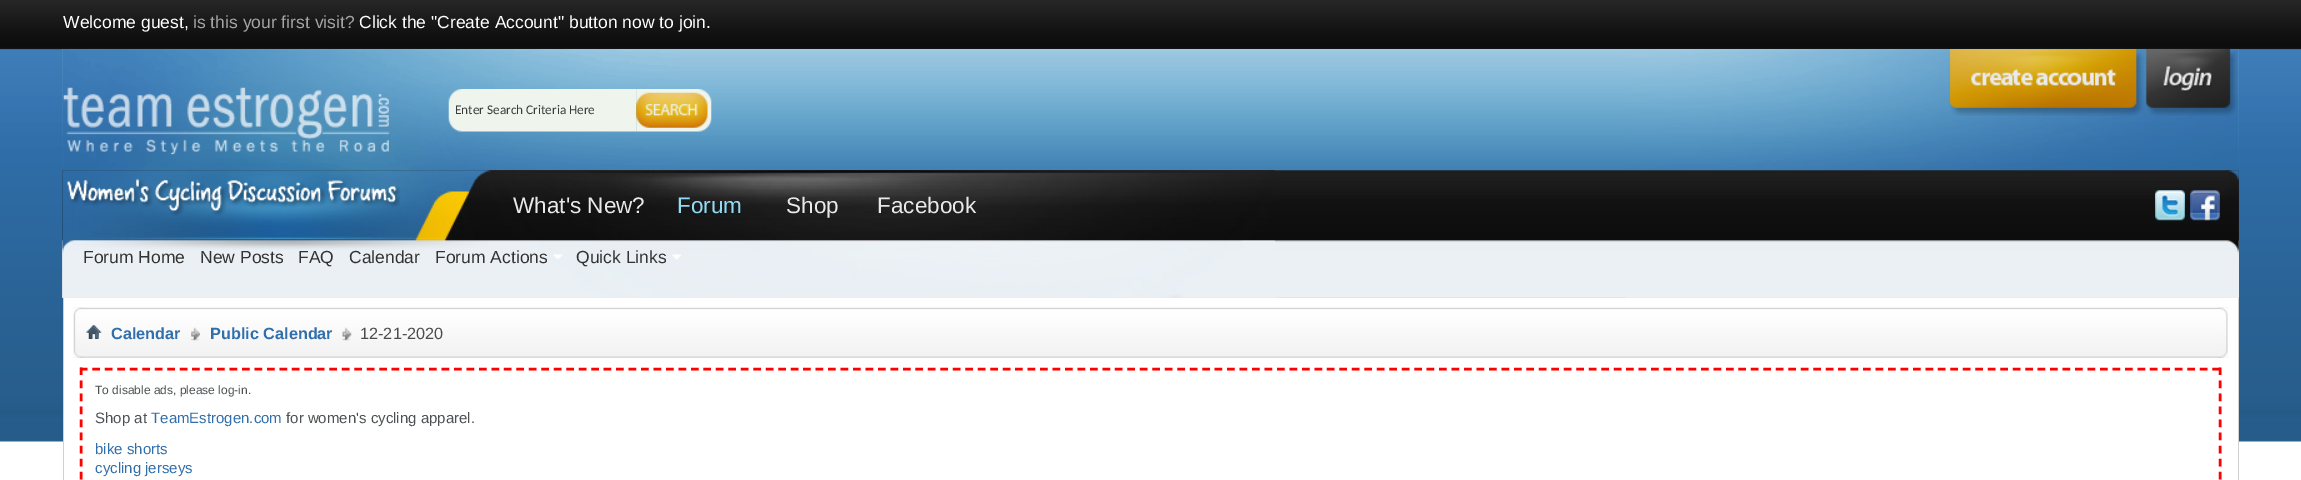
%!PS
<< /PageSize [2301 480] >> setpagedevice
/mt/moveto load def
/li/lineto load def
/st/stroke load def
/lw/setlinewidth load def
/co { dup -16 bitshift 255 div exch dup -8 bitshift 255 and 255 div exch 255 and 255 div setrgbcolor } def
/fn { [ exch dup neg 0 0 3 -1 roll 0 0 ] selectfont } def
/tx { co fn moveto show } def
/bx { co rectfill } def
/im { 5 dict begin { /h /w /y /x /name } { exch def } forall
  gsave x y translate w h scale
  w h 8 [w 0 0 h 0 0] name (r) file false 3 colorimage grestore end } def
0 480 translate 1 -1 scale
4 setmiterlimit
0 0 2301 480 16#FFFFFF bx
(media/1.raw) 0 0 2301 442 im
(media/2.raw) 62 49 2177 249 im
(media/3.raw) 62 49 613 249 im
(media/4.raw) 1626 49 613 249 im
(media/10.raw) 62 170 2177 128 im
(media/11.raw) 62 170 1213 128 im
(media/5.raw) 63 87 337 129 im
(media/6.raw) 448 89 189 43 im
(media/7.raw) 636 89 76 43 im
(media/8.raw) 1949 49 195 67 im
(media/9.raw) 2146 49 91 67 im
(media/12.raw) 2226 170 13 128 im
(media/13.raw) 553 254 10 6 im
(media/14.raw) 672 254 10 6 im
(media/15.raw) 2155 190 30 31 im
(media/16.raw) 2190 190 30 31 im
64 298 2174 144 16#FFFFFF bx
2238 298 1 182 16#D1D1D1 bx
63 298 1 182 16#D1D1D1 bx
(media/17.raw) 73 307 2155 51 im
(media/18.raw) 73 307 11 51 im
(media/19.raw) 2217 307 11 51 im
(media/20.raw) 86 325 16 14 im
(media/21.raw) 191 327 9 14 im
(media/22.raw) 342 327 10 14 im
16#FF0000 co
2.5 lw
[7.5 4.97] 0 setdash
80 369 mt 2221 369 li st
[7.5 5.55] 0 setdash
2220 367.5 mt 2220 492.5 li st
81 367.5 mt 81 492.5 li st
(Welcome guest,) 63 28 /LiberationSans-Regular 17.5 16#FFFFFF tx
(is this your first visit?) 193 28 /LiberationSans-Regular 17.5 16#A5A5A5 tx
(Click the "Create Account" button now to join.) 359 28 /LiberationSans-Regular 17.5 16#FFFFFF tx
(Enter Search Criteria Here) 455 114 /Carlito-Regular 13.25 16#3A3A3A tx
(What's New?) 513 213 /LiberationSans-Regular 22.5 16#E9E9E9 tx
(Forum) 677 213 /LiberationSans-Regular 22.5 16#91DBF4 tx
(Shop) 786 213 /LiberationSans-Regular 22.5 16#E9E9E9 tx
(Facebook) 877 213 /LiberationSans-Regular 22.5 16#E9E9E9 tx
(Forum Home) 83 263 /LiberationSans-Regular 17.5 16#333333 tx
(New Posts) 200 263 /LiberationSans-Regular 17.5 16#333333 tx
(FAQ) 298 263 /LiberationSans-Regular 17.5 16#333333 tx
(Calendar) 349 263 /LiberationSans-Regular 17.5 16#333333 tx
(Forum Actions) 435 263 /LiberationSans-Regular 17.5 16#333333 tx
(Quick Links) 576 263 /LiberationSans-Regular 17.5 16#333333 tx
(Calendar) 111 339 /LiberationSans-Bold 16.25 16#306FAB tx
(Public Calendar) 210 339 /LiberationSans-Bold 16.25 16#306FAB tx
(12-21-2020) 360 339 /LiberationSans-Regular 16.25 16#4C4C4C tx
(To disable ads, please log-in.) 95 394 /LiberationSans-Regular 12 16#4D5153 tx
(Shop at) 95 423 /LiberationSans-Regular 15 16#4D5153 tx
(TeamEstrogen.com) 151 423 /LiberationSans-Regular 15 16#306FAB tx
(for women's cycling apparel.) 286 423 /LiberationSans-Regular 15 16#4D5153 tx
(bike shorts) 95 454 /LiberationSans-Regular 15 16#306FAB tx
(cycling jerseys) 95 473 /LiberationSans-Regular 15 16#306FAB tx
showpage
